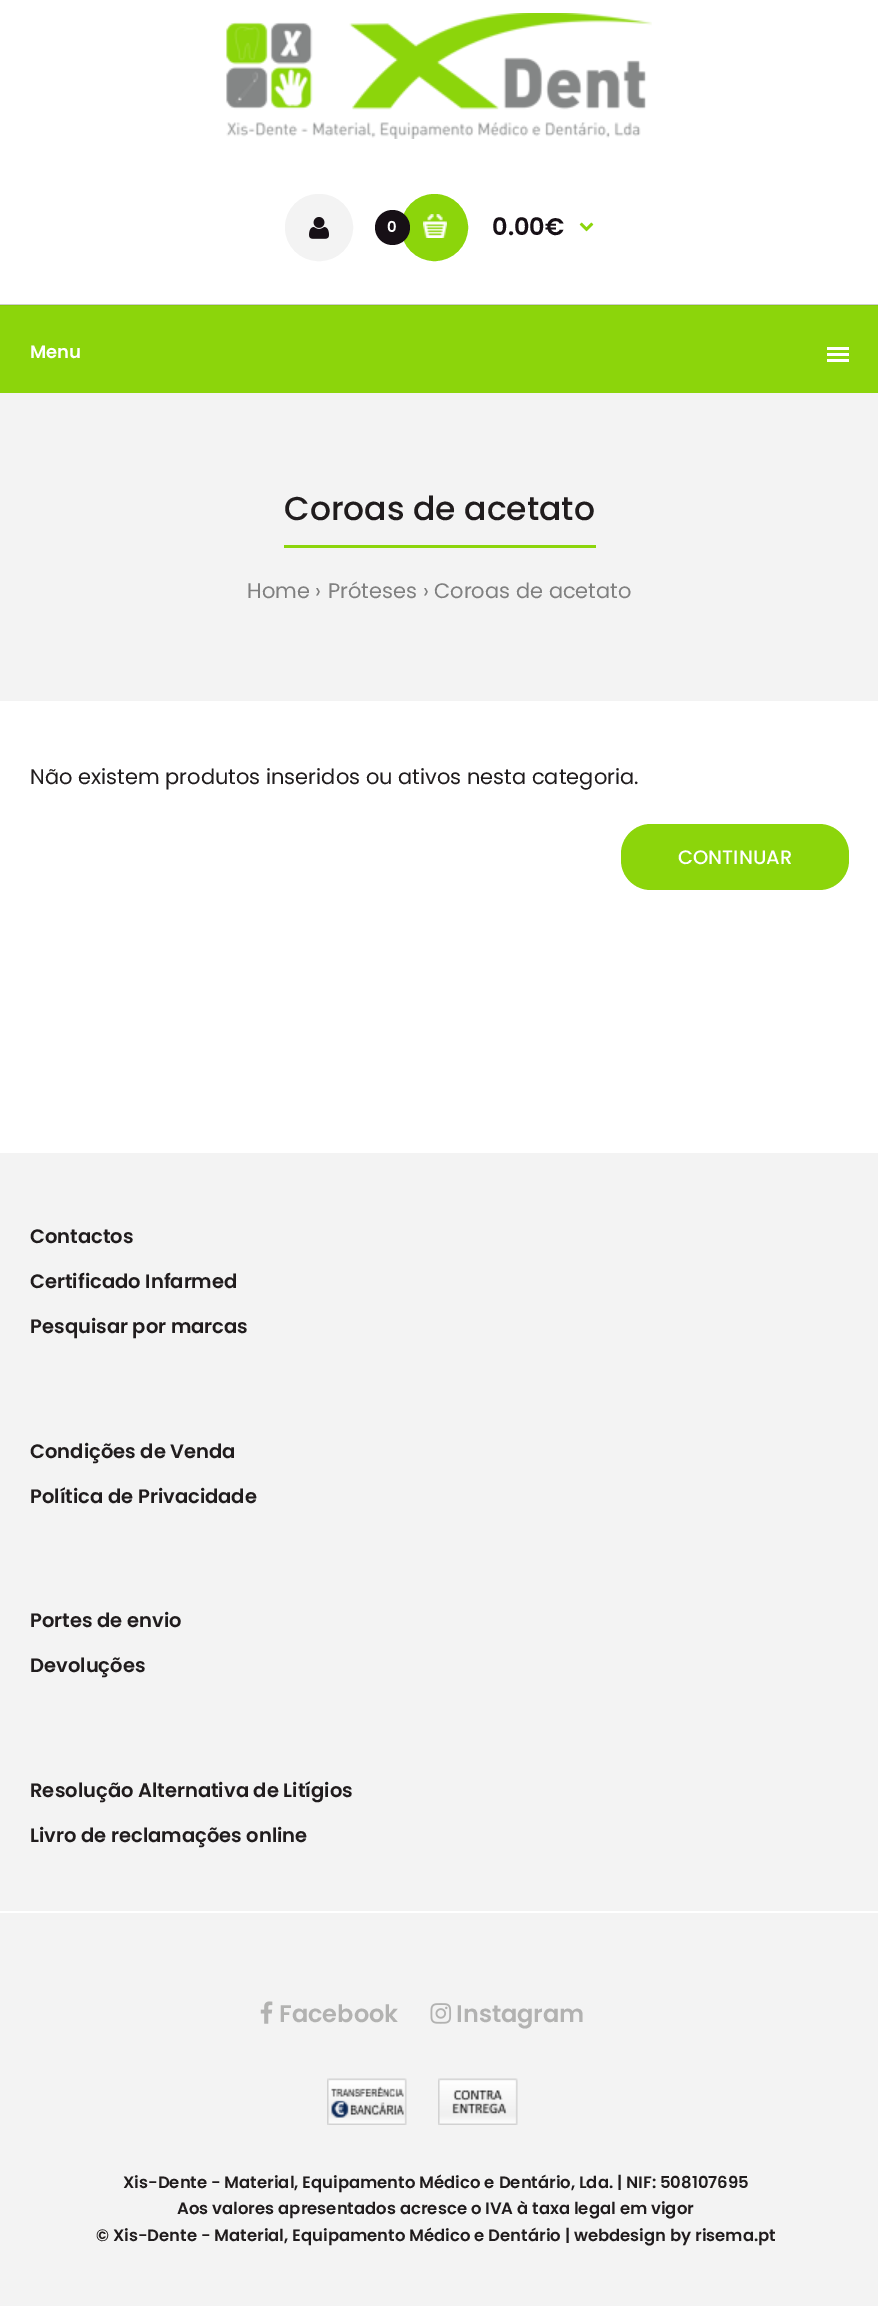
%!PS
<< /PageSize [878 2306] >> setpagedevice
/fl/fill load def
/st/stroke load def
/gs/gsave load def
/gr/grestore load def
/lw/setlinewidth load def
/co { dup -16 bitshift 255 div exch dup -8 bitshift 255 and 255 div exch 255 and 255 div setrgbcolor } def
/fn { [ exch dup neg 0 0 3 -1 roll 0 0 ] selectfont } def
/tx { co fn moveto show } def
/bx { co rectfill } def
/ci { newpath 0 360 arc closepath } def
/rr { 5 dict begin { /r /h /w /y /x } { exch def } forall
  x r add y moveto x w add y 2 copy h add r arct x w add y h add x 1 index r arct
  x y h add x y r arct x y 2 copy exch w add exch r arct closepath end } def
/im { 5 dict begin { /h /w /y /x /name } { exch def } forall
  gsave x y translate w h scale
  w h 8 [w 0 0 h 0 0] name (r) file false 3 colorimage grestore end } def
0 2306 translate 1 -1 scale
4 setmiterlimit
0 0 878 2306 16#FFFFFF bx
(media/1.raw) 226 13 426 126 im
16#F3F3F3 co
286 195 66 65 32.5 rr gs fl gr
2 lw
st
(media/2.raw) 309 217 20 22 im
16#8CD50B co
434.5 227.5 32.5 ci gs fl gr
st
16#171016 co
392.5 227.5 17.5 ci fl
(media/3.raw) 423 214 24 24 im
(media/4.raw) 579 222 15 10 im
(media/5.raw) 0 304 878 1 im
0 305 878 88 16#8CD50B bx
(media/6.raw) 0 304 878 2 im
827 347 22 3 16#FFFFFF bx
827 353 22 3 16#FFFFFF bx
827 359 22 3 16#FFFFFF bx
0 393 878 308 16#F3F3F3 bx
284 545 312 3 16#8CD50B bx
621 824 228 66 30 rr fl
0 1153 878 1153 16#F3F3F3 bx
0 1911 878 2 16#FFFFFF bx
(media/7.raw) 260 2001 13 23 im
(media/8.raw) 430 2003 22 21 im
(media/9.raw) 327 2078 80 47 im
(media/10.raw) 438 2078 80 47 im
(0) 387 232 /Poppins-SemiBold 15 16#FFFFFF tx
(0.00€) 492 235 /Poppins-SemiBold 24 16#171016 tx
(Menu) 30 358 /Poppins-SemiBold 18 16#FFFFFF tx
(Coroas de acetato) 284 520 /Poppins-Medium 33 16#201C1D tx
(Home ›) 247 598 /Poppins-Regular 21 16#808080 tx
(Próteses ›) 328 598 /Poppins-Regular 21 16#808080 tx
(Coroas de acetato) 434 598 /Poppins-Regular 21 16#808080 tx
(Não existem produtos inseridos ou ativos nesta categoria.) 30 784 /Poppins-Regular 21 16#201C1D tx
(CONTINUAR) 678 864 /Poppins-Medium 19.5 16#FFFFFF tx
(Contactos) 30 1243 /Poppins-SemiBold 19.5 16#201C1D tx
(Certificado Infarmed) 30 1288 /Poppins-SemiBold 19.5 16#201C1D tx
(Pesquisar por marcas) 30 1333 /Poppins-SemiBold 19.5 16#201C1D tx
(Condições de Venda) 30 1458 /Poppins-SemiBold 19.5 16#201C1D tx
(Política de Privacidade) 30 1503 /Poppins-SemiBold 19.5 16#201C1D tx
(Portes de envio) 30 1627 /Poppins-SemiBold 19.5 16#201C1D tx
(Devoluções) 30 1672 /Poppins-SemiBold 19.5 16#201C1D tx
(Resolução Alternativa de Litígios) 30 1797 /Poppins-SemiBold 19.5 16#201C1D tx
(Livro de reclamações online) 30 1842 /Poppins-SemiBold 19.5 16#201C1D tx
(Facebook) 279 2022 /Poppins-SemiBold 24 16#B2B2B1 tx
(Instagram) 456 2022 /Poppins-SemiBold 24 16#B2B2B1 tx
(Xis-Dente - Material, Equipamento Médico e Dentário, Lda. | NIF: 508107695) 123 2188 /Poppins-SemiBold 16.5 16#201C1D tx
(Aos valores apresentados acresce o IVA à taxa legal em vigor) 177 2214 /Poppins-SemiBold 16.5 16#201C1D tx
(© Xis-Dente - Material, Equipamento Médico e Dentário | webdesign by risema.pt) 96 2241 /Poppins-SemiBold 16.5 16#201C1D tx
showpage
